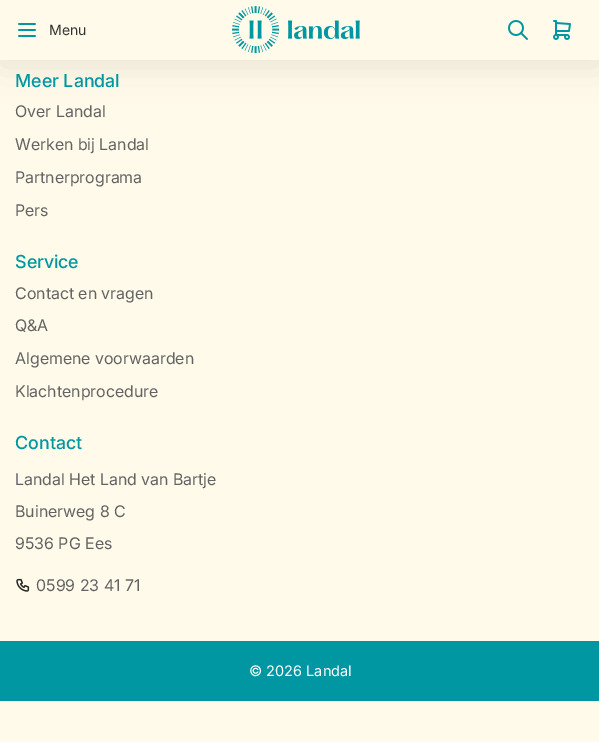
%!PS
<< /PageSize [599 742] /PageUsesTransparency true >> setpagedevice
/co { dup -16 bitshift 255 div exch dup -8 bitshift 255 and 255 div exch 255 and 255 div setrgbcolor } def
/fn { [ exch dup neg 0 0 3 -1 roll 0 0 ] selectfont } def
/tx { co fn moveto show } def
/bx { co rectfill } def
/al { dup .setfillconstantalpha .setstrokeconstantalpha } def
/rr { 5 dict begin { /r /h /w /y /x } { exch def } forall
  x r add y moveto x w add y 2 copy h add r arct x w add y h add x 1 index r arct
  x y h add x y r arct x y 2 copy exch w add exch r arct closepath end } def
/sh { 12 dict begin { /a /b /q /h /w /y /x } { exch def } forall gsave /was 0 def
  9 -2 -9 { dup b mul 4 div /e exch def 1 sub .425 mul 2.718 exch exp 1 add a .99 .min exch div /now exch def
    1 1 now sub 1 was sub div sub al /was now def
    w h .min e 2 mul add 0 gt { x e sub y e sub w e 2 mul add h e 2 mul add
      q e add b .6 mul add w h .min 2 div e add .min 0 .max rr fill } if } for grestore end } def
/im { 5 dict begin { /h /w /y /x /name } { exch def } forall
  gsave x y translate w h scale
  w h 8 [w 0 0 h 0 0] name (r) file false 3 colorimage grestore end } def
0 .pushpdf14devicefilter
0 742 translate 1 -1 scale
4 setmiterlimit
0 0 599 742 16#FFFAE9 bx
16#000000 co
0 5 599 60 0 17.5 .1 sh
0 0 599 60 16#FFFAE9 bx
(media/1.raw) 18 23 18 14 im
(media/2.raw) 232 6 128 47 im
(media/3.raw) 508 20 20 20 im
(media/4.raw) 553 20 18 20 im
(media/5.raw) 16 578 14 14 im
0 641 599 60 16#0097A2 bx
(Menu) 49 35 /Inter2-Regular 14 16#333333 tx
(Meer Landal) 15 87 /Inter-Medium 18 16#0097A2 tx
(Over Landal) 15 117 /Inter-Regular 16 16#636363 tx
(Werken bij Landal) 15 150 /Inter-Regular 16 16#636363 tx
(Partnerprograma) 15 183 /Inter-Regular 16 16#636363 tx
(Pers) 15 216 /Inter-Regular 16 16#636363 tx
(Service) 15 268 /Inter-Medium 18 16#0097A2 tx
(Contact en vragen) 15 299 /Inter-Regular 16 16#636363 tx
(Q&A) 15 331 /Inter-Regular 16 16#636363 tx
(Algemene voorwaarden) 15 364 /Inter-Regular 16 16#636363 tx
(Klachtenprocedure) 15 397 /Inter-Regular 16 16#636363 tx
(Contact) 15 449 /Inter-Medium 18 16#0097A2 tx
(Landal Het Land van Bartje) 15 485 /Inter-Regular 16 16#636363 tx
(Buinerweg 8 C) 15 517 /Inter-Regular 16 16#636363 tx
(9536 PG Ees) 15 549 /Inter-Regular 16 16#636363 tx
(0599 23 41 71) 36 591 /Inter-Regular 16 16#636363 tx
(© 2026 Landal) 249 676 /Inter2-Regular 14.5 16#FFFFFF tx
.poppdf14devicefilter showpage
